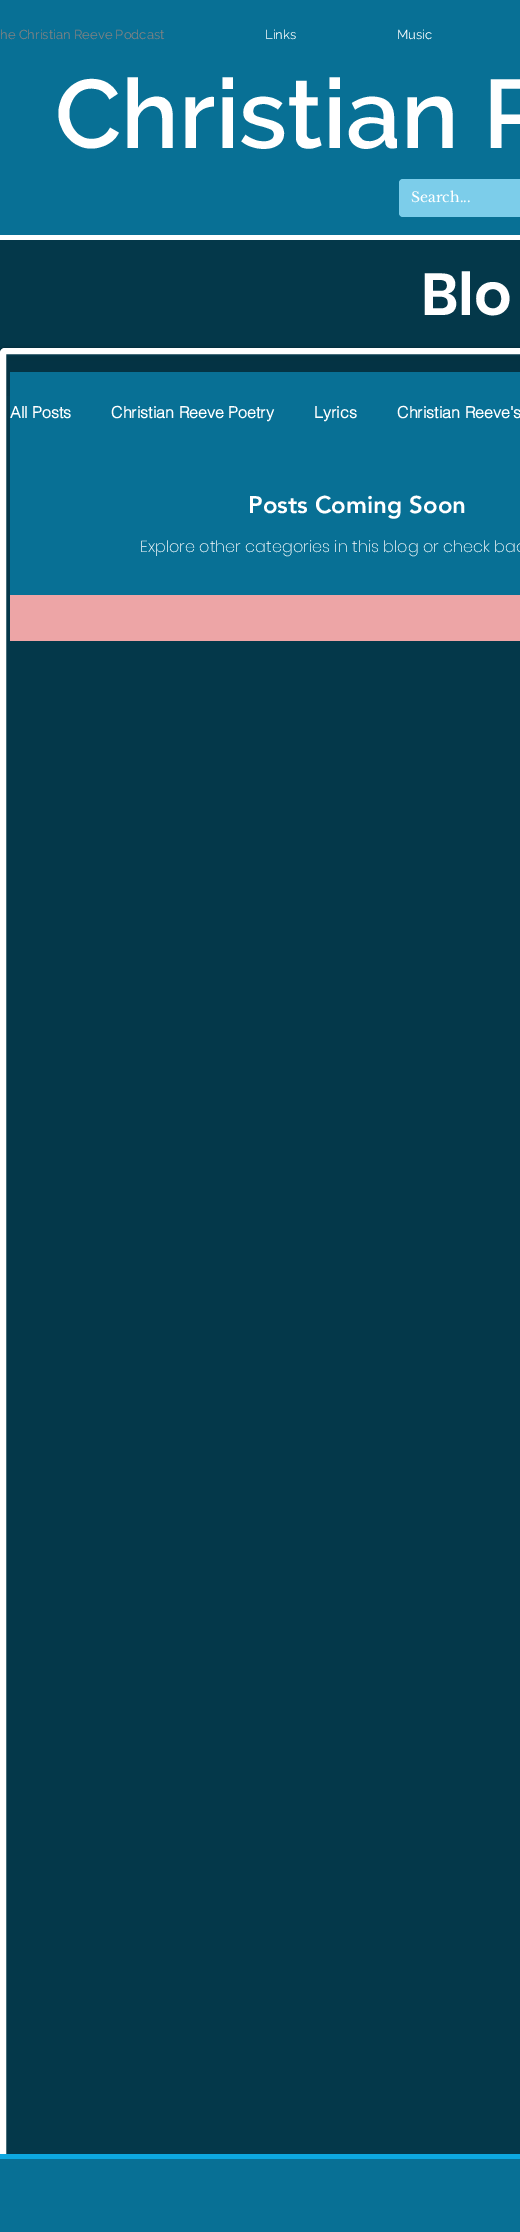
%!PS
<< /PageSize [520 2232] /PageUsesTransparency true >> setpagedevice
/fl/fill load def
/st/stroke load def
/lw/setlinewidth load def
/co { dup -16 bitshift 255 div exch dup -8 bitshift 255 and 255 div exch 255 and 255 div setrgbcolor } def
/fn { [ exch dup neg 0 0 3 -1 roll 0 0 ] selectfont } def
/tx { co fn moveto show } def
/bx { co rectfill } def
/al { dup .setfillconstantalpha .setstrokeconstantalpha } def
/rr { 5 dict begin { /r /h /w /y /x } { exch def } forall
  x r add y moveto x w add y 2 copy h add r arct x w add y h add x 1 index r arct
  x y h add x y r arct x y 2 copy exch w add exch r arct closepath end } def
/sh { 12 dict begin { /a /b /q /h /w /y /x } { exch def } forall gsave /was 0 def
  9 -2 -9 { dup b mul 4 div /e exch def 1 sub .425 mul 2.718 exch exp 1 add a .99 .min exch div /now exch def
    1 1 now sub 1 was sub div sub al /was now def
    w h .min e 2 mul add 0 gt { x e sub y e sub w e 2 mul add h e 2 mul add
      q e add b .6 mul add w h .min 2 div e add .min 0 .max rr fill } if } for grestore end } def
/im { 5 dict begin { /h /w /y /x /name } { exch def } forall
  gsave x y translate w h scale
  w h 8 [w 0 0 h 0 0] name (r) file false 3 colorimage grestore end } def
0 .pushpdf14devicefilter
0 2232 translate 1 -1 scale
4 setmiterlimit
0 0 520 2232 16#087095 bx
16#7CCDEA co
399 179 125 38 4 rr fl
0 235 520 5 16#FFFFFF bx
0 240 520 113 16#04384A bx
16#000000 co
0 349 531 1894 5 2 .6 sh
16#04384A co
0 348 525 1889 5 rr fl
(media/1.raw) 6 356 514 40 im
16#FFFFFF co
6 lw
3 351 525 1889 2 rr st
10 595 510 46 16#EDA5A6 bx
10 372 510 223 16#087095 bx
0 2159 520 73 16#087095 bx
0 2154 520 5 16#0DA8E0 bx
(he Christian Reeve Podcast) 0 39 /Raleway-Regular 13 16#828282 tx
(Links) 265 39 /Raleway-Regular 13 16#FFFFFF tx
(Music) 397 39 /Raleway-Regular 13 16#FFFFFF tx
(Christian P) 55 148 /Raleway-SemiBold 97 16#FFFFFF tx
(Search...) 411 202 /LibreBaskerville-Regular 14 16#FFFFFF tx
(Blo) 421 315 /Poppins-SemiBold 59 16#FFFFFF tx
(All Posts) 10 418 /helvetica-Bold 16 16#FFFFFF tx
(Christian Reeve Poetry) 111 418 /helvetica-Bold 16 16#FFFFFF tx
(Lyrics) 314 418 /helvetica-Bold 16 16#FFFFFF tx
(Christian Reeve's) 397 418 /helvetica-Bold 16 16#FFFFFF tx
(Posts Coming Soon) 248 513 /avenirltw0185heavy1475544-Black 24 16#FFFFFF tx
(Explore other categories in this blog or check bac) 140 552 /Poppins-ExtraLight 16 16#FFFFFF tx
.poppdf14devicefilter showpage
